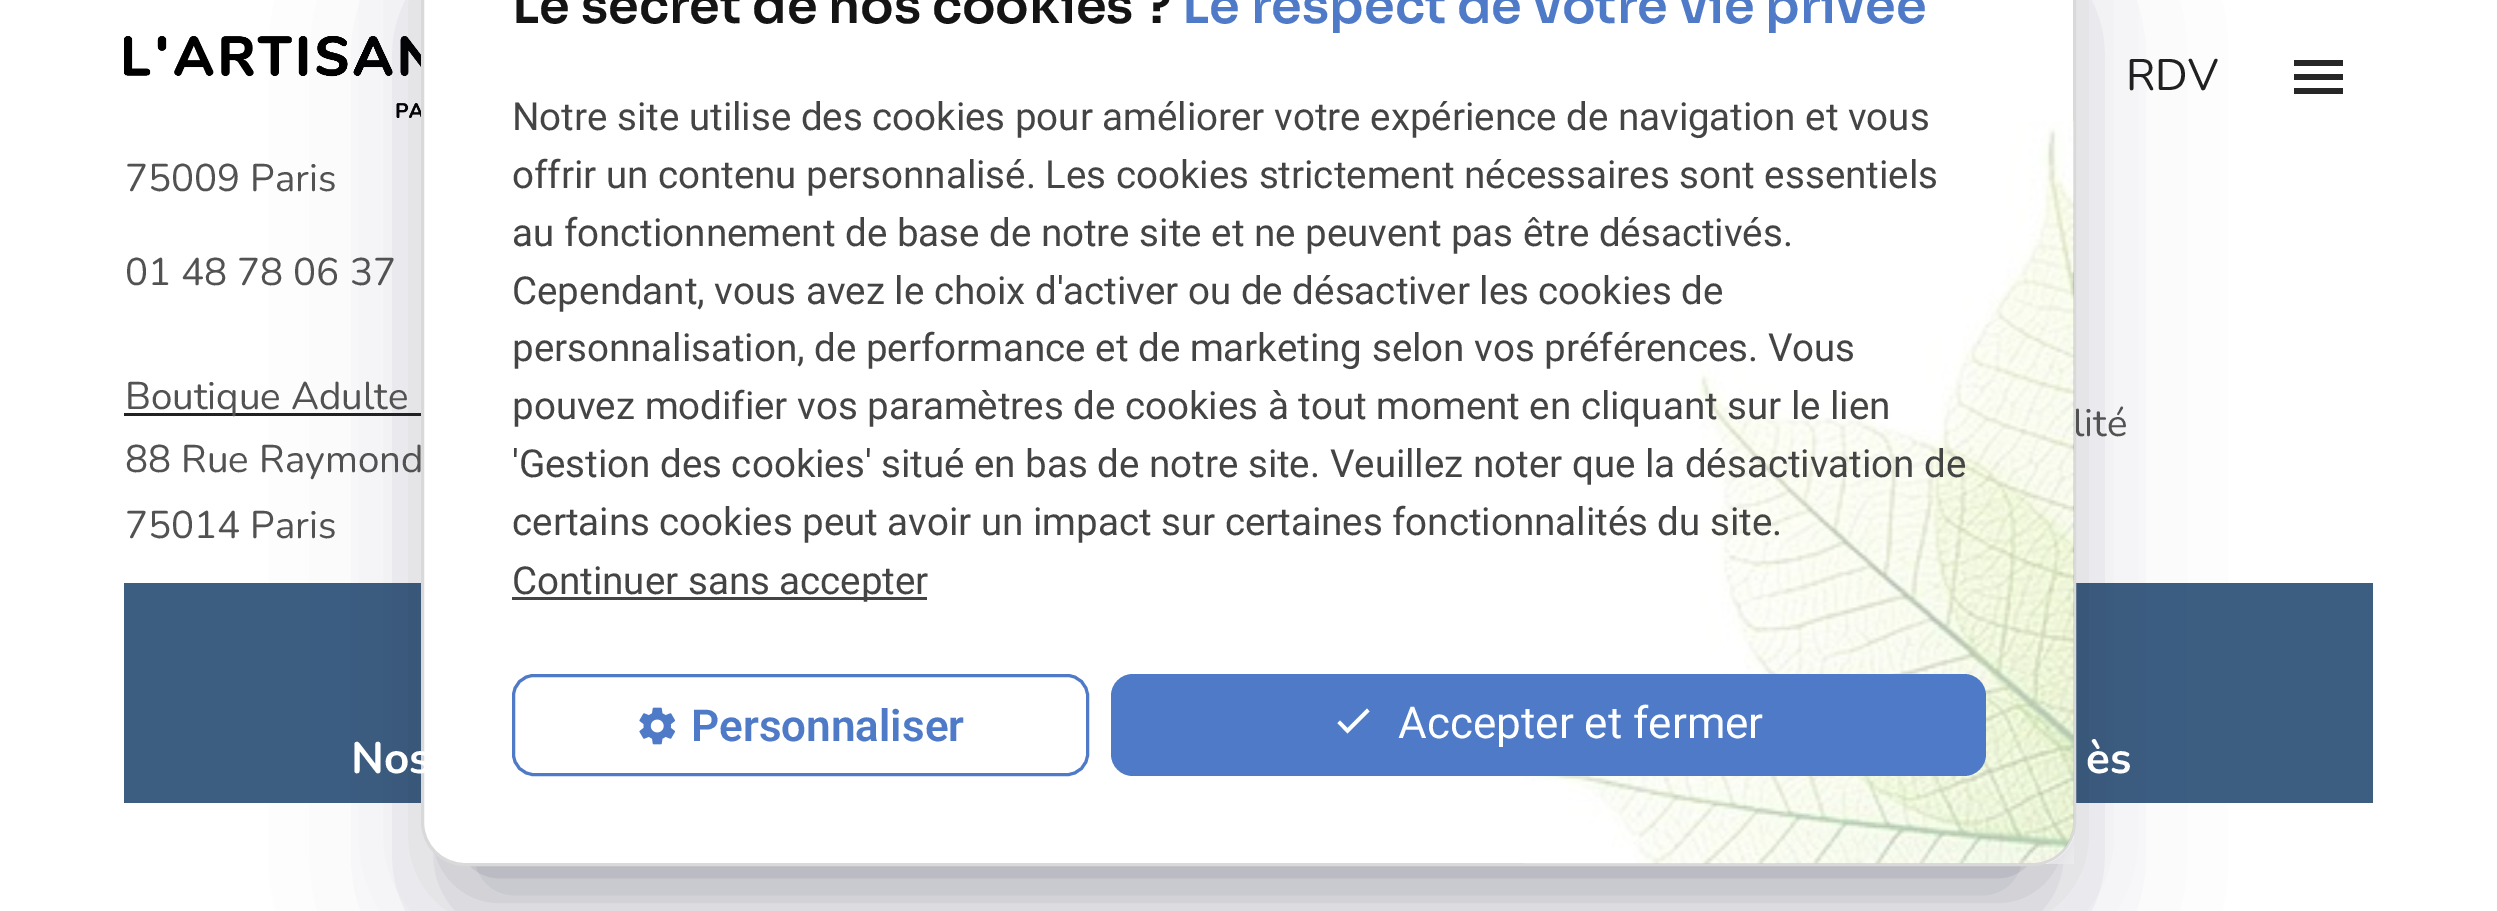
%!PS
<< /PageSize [2497 911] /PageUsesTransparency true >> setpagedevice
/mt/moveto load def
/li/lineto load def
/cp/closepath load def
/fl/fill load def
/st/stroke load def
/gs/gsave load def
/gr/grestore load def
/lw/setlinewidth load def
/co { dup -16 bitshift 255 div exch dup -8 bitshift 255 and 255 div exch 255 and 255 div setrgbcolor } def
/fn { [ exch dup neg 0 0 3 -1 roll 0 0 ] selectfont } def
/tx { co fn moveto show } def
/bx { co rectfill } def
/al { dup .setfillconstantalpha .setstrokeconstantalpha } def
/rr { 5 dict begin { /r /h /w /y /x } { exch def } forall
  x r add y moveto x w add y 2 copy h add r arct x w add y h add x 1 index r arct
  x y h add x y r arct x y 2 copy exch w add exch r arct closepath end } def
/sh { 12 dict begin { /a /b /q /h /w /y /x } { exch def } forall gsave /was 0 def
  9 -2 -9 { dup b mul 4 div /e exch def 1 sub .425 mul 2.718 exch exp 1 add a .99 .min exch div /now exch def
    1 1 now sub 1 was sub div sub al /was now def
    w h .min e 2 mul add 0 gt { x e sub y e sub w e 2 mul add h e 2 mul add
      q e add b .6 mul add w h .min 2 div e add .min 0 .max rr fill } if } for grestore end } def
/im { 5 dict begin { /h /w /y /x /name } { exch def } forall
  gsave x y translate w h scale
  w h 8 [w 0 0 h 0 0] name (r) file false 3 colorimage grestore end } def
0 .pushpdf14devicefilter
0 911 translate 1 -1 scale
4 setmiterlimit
0 0 2497 911 16#FFFFFF bx
(media/3.raw) 124 36 297 82 im
124 413 297 3 16#212121 bx
124 583 297 220 16#3B5E81 bx
2076 583 297 220 16#3B5E81 bx
16#000000 co
470 -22 1557 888 0 49.5 .3 sh
16#32325D co
454 -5 1589 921 11 82.5 .25 sh
16#FFFFFF co
422.5 -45.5 1652 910 42.5 rr gs fl gr
16#D9D9D9 co
3 lw
st
512 597 415 3 16#444444 bx
16#4E7AC7 co
513.5 675.5 574 99 20.5 rr st
(media/1.raw) 639 707 37 38 im
(media/2.raw) 1524 121 550 743 im
1111 674 875 102 22 rr fl
16#FFFFFF co
1347.5 728 mt 1367 708.5 li 1369.5 711.5 li 1347.5 733.5 li 1337.5 723 li 1340 720.5 li cp fl
16#262626 co
2294 60 mt 2343 60 li 2343 66 li 2294 66 li cp 2294 80 mt 2294 74 li 2343 74 li 2343 80 li cp 2294 94 mt 2294 88 li 2343 88 li 2343 94 li cp fl
(Le secret de nos cookies ?) 512 23 /Sora-SemiBold 49.5 16#141414 tx
(Le respect de votre vie privée) 1182 23 /Sora-SemiBold 49.5 16#4E7AC7 tx
(Notre site utilise des cookies pour améliorer votre expérience de navigation et vous) 512 130 /Roboto-Regular 38.5 16#444444 tx
(offrir un contenu personnalisé. Les cookies strictement nécessaires sont essentiels) 512 188 /Roboto-Regular 38.5 16#444444 tx
(au fonctionnement de base de notre site et ne peuvent pas être désactivés.) 512 246 /Roboto-Regular 38.5 16#444444 tx
(Cependant, vous avez le choix d'activer ou de désactiver les cookies de) 512 304 /Roboto-Regular 38.5 16#444444 tx
(personnalisation, de performance et de marketing selon vos préférences. Vous) 512 361 /Roboto-Regular 38.5 16#444444 tx
(pouvez modifier vos paramètres de cookies à tout moment en cliquant sur le lien) 512 419 /Roboto-Regular 38.5 16#444444 tx
('Gestion des cookies' situé en bas de notre site. Veuillez noter que la désactivation de) 512 477 /Roboto-Regular 38.5 16#444444 tx
(certains cookies peut avoir un impact sur certaines fonctionnalités du site.) 512 535 /Roboto-Regular 38.5 16#444444 tx
(Continuer sans accepter) 512 594 /Roboto-Regular 38.5 16#444444 tx
(Personnaliser) 691 741 /Roboto-SemiBold 44 16#4E7AC7 tx
(Accepter et fermer) 1398 738 /Roboto-Regular 44 16#FFFFFF tx
(RDV) 2126 90 /Nunito-Regular 44 16#212121 tx
(75009 Paris) 125 191 /Nunito-Regular 38.5 16#525252 tx
(01 48 78 06 37) 125 285 /Nunito-Regular 38.5 16#525252 tx
(Boutique Adulte) 125 409 /Nunito-Regular 38.5 16#525252 tx
(88 Rue Raymond) 125 472 /Nunito-Regular 38.5 16#525252 tx
(75014 Paris) 125 538 /Nunito-Regular 38.5 16#525252 tx
(lité) 2073 436 /Nunito-Regular 38.5 16#525252 tx
(Nos) 351 773 /Nunito-Bold 44 16#FFFFFF tx
(ès) 2086 773 /Nunito-Bold 44 16#FFFFFF tx
.poppdf14devicefilter showpage
